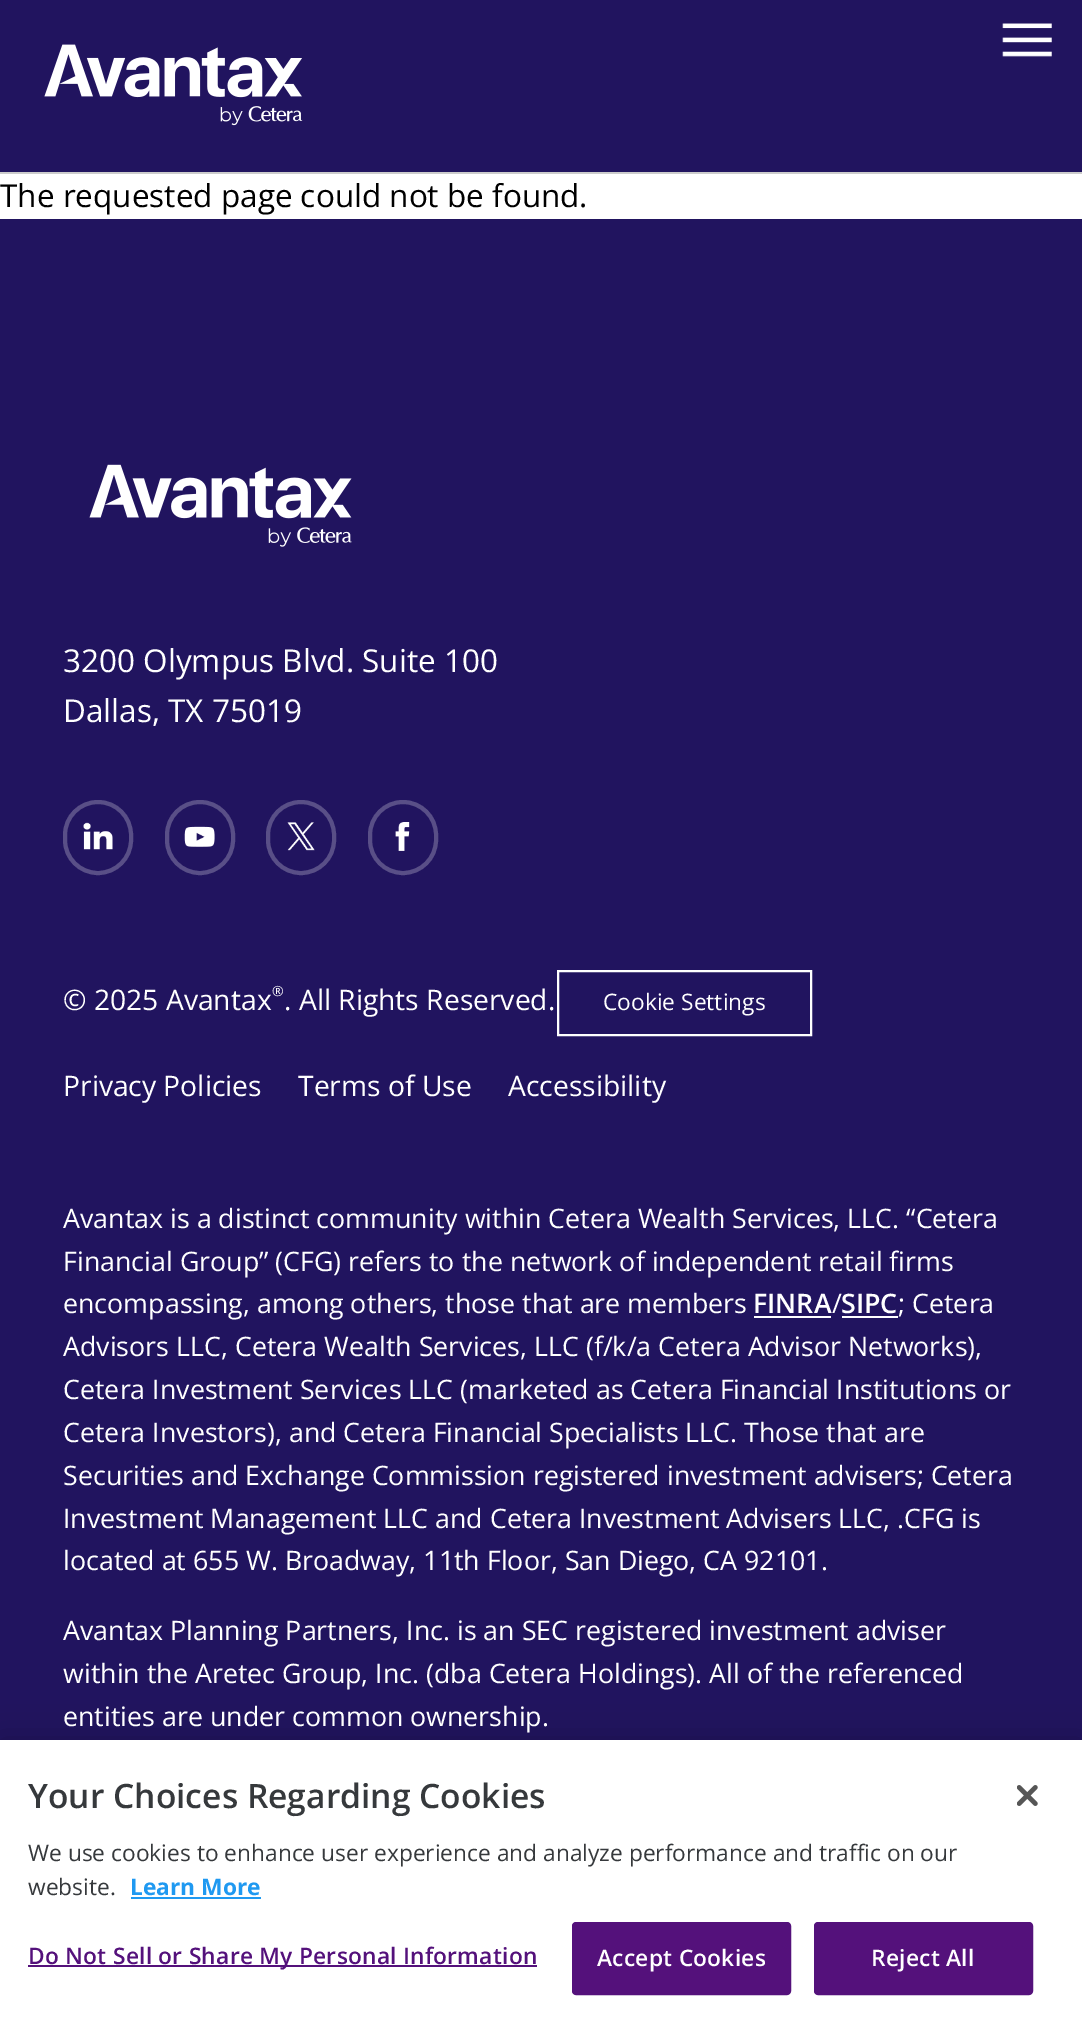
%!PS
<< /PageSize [1082 2031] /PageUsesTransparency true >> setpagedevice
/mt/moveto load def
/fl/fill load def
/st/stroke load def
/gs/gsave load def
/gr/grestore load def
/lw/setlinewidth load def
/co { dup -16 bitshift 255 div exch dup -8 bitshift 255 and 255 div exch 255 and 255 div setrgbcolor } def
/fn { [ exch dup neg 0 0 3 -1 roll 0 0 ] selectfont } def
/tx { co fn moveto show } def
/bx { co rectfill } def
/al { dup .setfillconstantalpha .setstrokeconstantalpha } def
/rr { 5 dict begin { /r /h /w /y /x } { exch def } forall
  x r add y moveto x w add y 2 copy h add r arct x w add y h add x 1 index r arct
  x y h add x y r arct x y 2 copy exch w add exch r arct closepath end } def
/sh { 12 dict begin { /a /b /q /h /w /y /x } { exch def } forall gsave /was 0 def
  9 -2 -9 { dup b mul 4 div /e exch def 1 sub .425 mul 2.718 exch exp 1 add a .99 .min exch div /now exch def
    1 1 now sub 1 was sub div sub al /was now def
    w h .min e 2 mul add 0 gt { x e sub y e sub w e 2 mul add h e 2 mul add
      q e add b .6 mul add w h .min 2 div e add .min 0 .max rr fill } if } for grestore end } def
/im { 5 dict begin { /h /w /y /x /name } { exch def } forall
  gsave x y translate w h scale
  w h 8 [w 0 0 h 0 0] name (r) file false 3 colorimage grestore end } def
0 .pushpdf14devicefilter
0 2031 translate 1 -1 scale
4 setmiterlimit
0 0 1082 2031 16#21145F bx
0 172 1082 2 16#CCCCCC bx
(media/1.raw) 1002 23 50 34 im
(media/2.raw) 44 44 259 82 im
0 174 1082 45 16#FFFFFF bx
(media/3.raw) 89 464 263 83 im
16#594F87 co
4 lw
65 802 66 71 33 rr st
(media/4.raw) 83 822 30 28 im
167 802 66 71 33 rr st
(media/5.raw) 184 826 31 21 im
268 802 66 71 33 rr st
(media/6.raw) 287 822 28 29 im
370 802 66 71 33 rr st
(media/7.raw) 395 822 15 29 im
16#FFFFFF co
2 lw
558 971 253 64 rectstroke
754 1316 77 2 16#FFFFFF bx
842 1316 56 2 16#FFFFFF bx
16#000000 co
0 1740 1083 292 0 16 .2 sh
0 1740 1082 291 16#FFFFFF bx
131 1897 130 2 16#1F99F1 bx
28 1965 509 2 16#54117B bx
573 1923 217 71 3 rr gs fl gr
st
815 1923 217 71 3 rr gs fl gr
st
(media/8.raw) 1017 1785 21 21 im
(The requested page could not be found.) 0 207 /OpenSans-Regular 31.5 16#000000 tx
(3200 Olympus Blvd. Suite 100) 63 672 /OpenSans-Regular 31.5 16#FFFFFF tx
(Dallas, TX 75019) 63 722 /OpenSans-Regular 31.5 16#FFFFFF tx
(© 2025 Avantax) 63 1010 /OpenSans-Regular 28.25 16#FFFFFF tx
(®) 272 996 /OpenSans-Regular 14 16#FFFFFF tx
(. All Rights Reserved.) 284 1010 /OpenSans-Regular 28.25 16#FFFFFF tx
(Cookie Settings) 603 1010 /OpenSans-Regular 22.75 16#FFFFFF tx
(Privacy Policies) 63 1096 /OpenSans-Regular 28.25 16#FFFFFF tx
(Terms of Use) 298 1096 /OpenSans-Regular 28.25 16#FFFFFF tx
(Accessibility) 508 1096 /OpenSans-Regular 28.25 16#FFFFFF tx
(Avantax is a distinct community within Cetera Wealth Services, LLC. “Cetera) 63 1228 /OpenSans-Regular 26.8 16#FFFFFF tx
(Financial Group” \(CFG\) refers to the network of independent retail firms) 63 1271 /OpenSans-Regular 26.8 16#FFFFFF tx
(encompassing, among others, those that are members) 63 1313 /OpenSans-Regular 26.8 16#FFFFFF tx
(FINRA) 753 1313 /OpenSans-SemiBold 26.8 16#FFFFFF tx
(/) 832 1313 /OpenSans-Regular 26.8 16#FFFFFF tx
(SIPC) 841 1313 /OpenSans-SemiBold 26.8 16#FFFFFF tx
(; Cetera) 898 1313 /OpenSans-Regular 26.8 16#FFFFFF tx
(Advisors LLC, Cetera Wealth Services, LLC \(f/k/a Cetera Advisor Networks\),) 63 1356 /OpenSans-Regular 26.8 16#FFFFFF tx
(Cetera Investment Services LLC \(marketed as Cetera Financial Institutions or) 63 1399 /OpenSans-Regular 26.8 16#FFFFFF tx
(Cetera Investors\), and Cetera Financial Specialists LLC. Those that are) 63 1442 /OpenSans-Regular 26.8 16#FFFFFF tx
(Securities and Exchange Commission registered investment advisers; Cetera) 63 1485 /OpenSans-Regular 26.8 16#FFFFFF tx
(Investment Management LLC and Cetera Investment Advisers LLC, .CFG is) 63 1528 /OpenSans-Regular 26.8 16#FFFFFF tx
(located at 655 W. Broadway, 11th Floor, San Diego, CA 92101.) 63 1570 /OpenSans-Regular 26.8 16#FFFFFF tx
(Avantax Planning Partners, Inc. is an SEC registered investment adviser) 63 1640 /OpenSans-Regular 26.8 16#FFFFFF tx
(within the Aretec Group, Inc. \(dba Cetera Holdings\). All of the referenced) 63 1683 /OpenSans-Regular 26.8 16#FFFFFF tx
(entities are under common ownership.) 63 1726 /OpenSans-Regular 26.8 16#FFFFFF tx
(Your Choices Regarding Cookies) 28 1808 /OpenSans-SemiBold 33.6 16#36393C tx
(We use cookies to enhance user experience and analyze performance and traffic on our) 28 1861 /OpenSans-Regular 22.75 16#36393C tx
(website.) 28 1895 /OpenSans-Regular 22.75 16#36393C tx
(Learn More) 130 1895 /OpenSans-Bold 22.75 16#1F99F1 tx
/OpenSans-SemiBold 22.75 fn
16#54117B co
28 1964 mt .25 0 (Do Not Sell or Share My Personal Information) ashow
16#FFFFFF co
597 1966 mt .25 0 (Accept Cookies) ashow
871 1966 mt .25 0 (Reject All) ashow
.poppdf14devicefilter showpage
